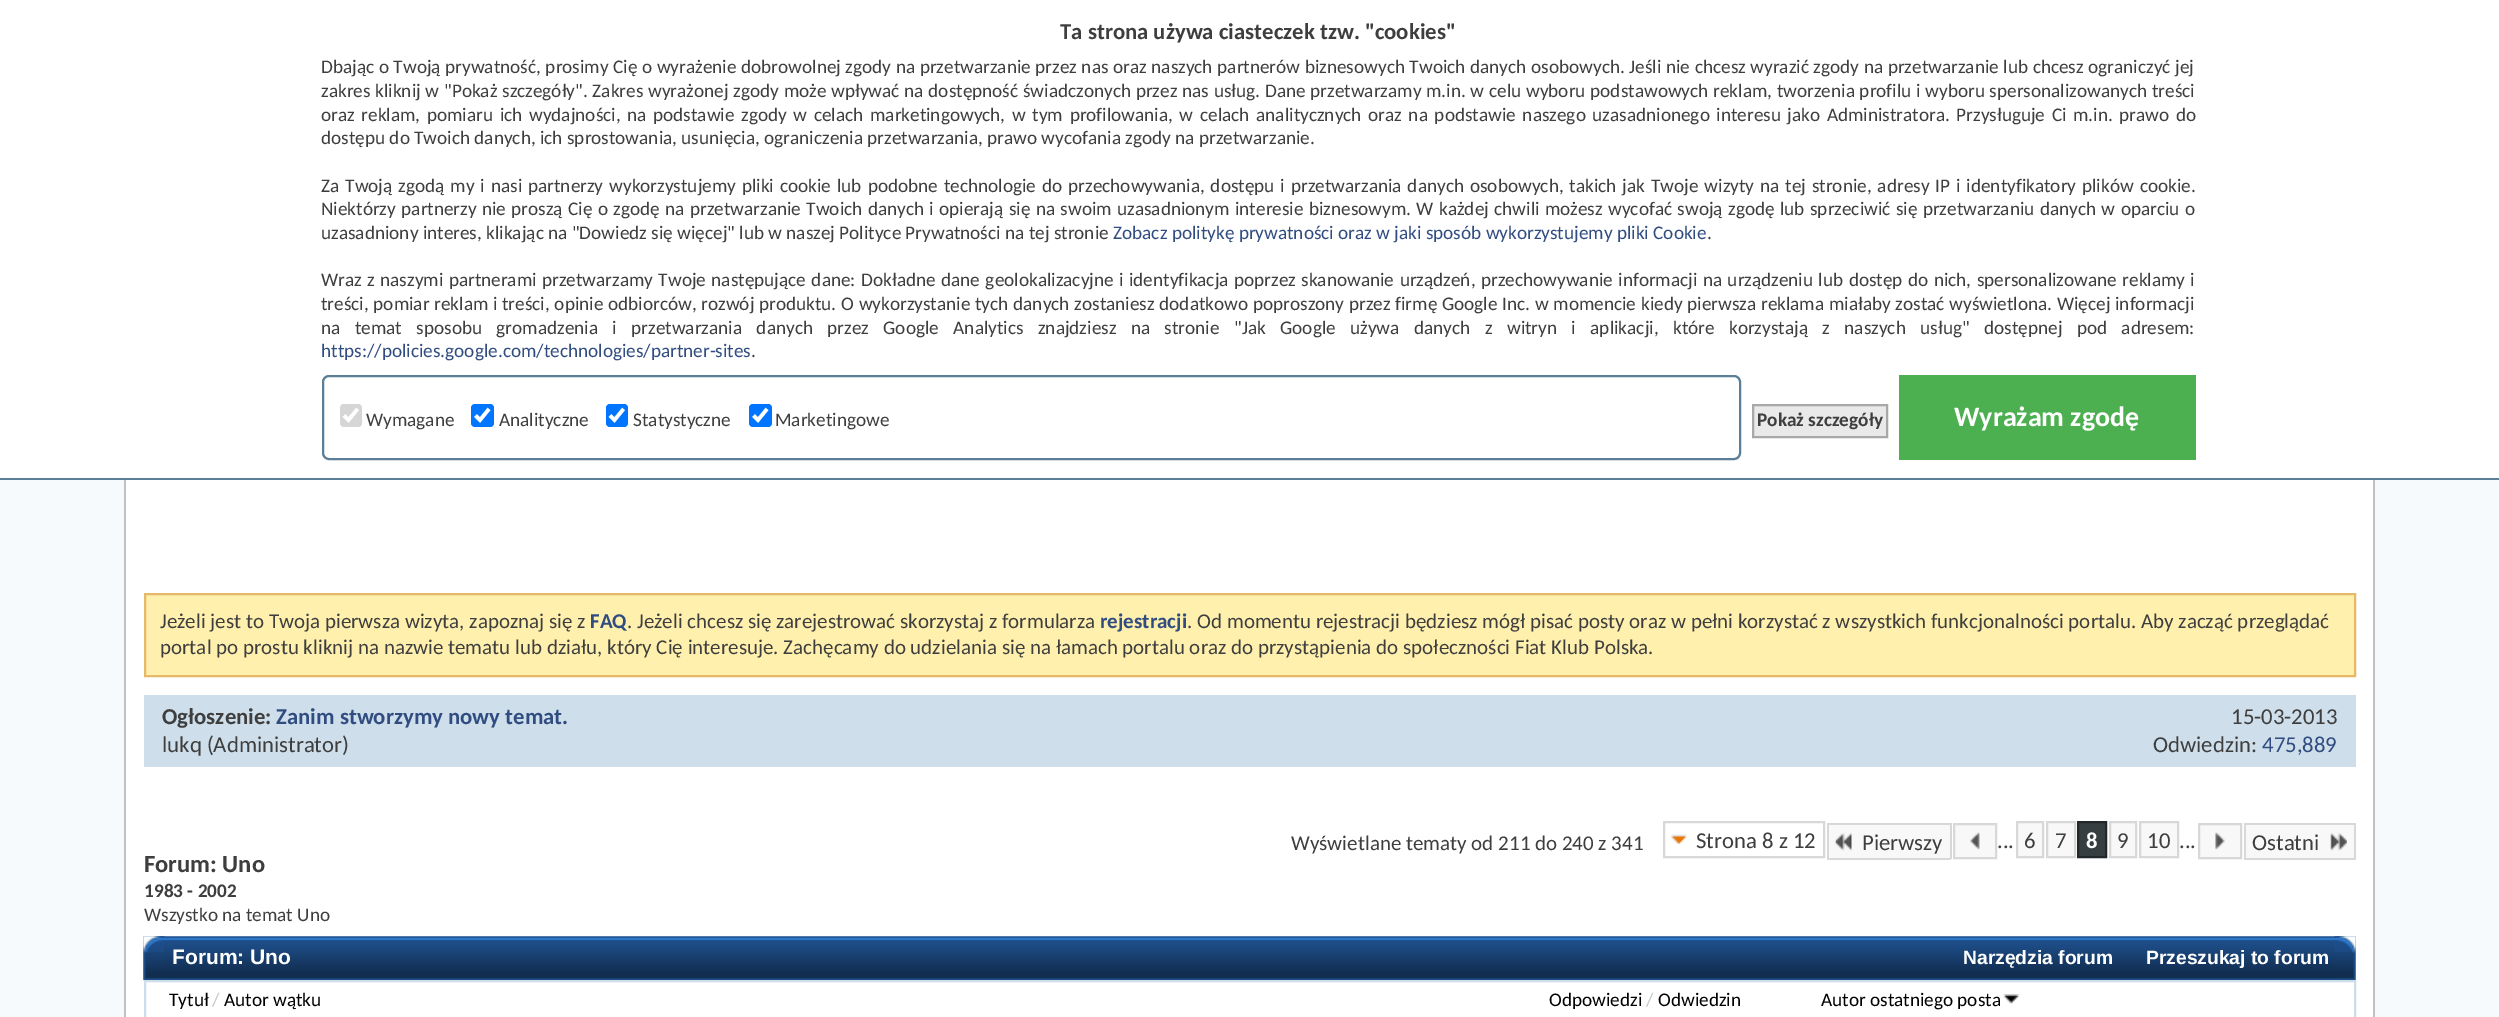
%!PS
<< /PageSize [2499 1017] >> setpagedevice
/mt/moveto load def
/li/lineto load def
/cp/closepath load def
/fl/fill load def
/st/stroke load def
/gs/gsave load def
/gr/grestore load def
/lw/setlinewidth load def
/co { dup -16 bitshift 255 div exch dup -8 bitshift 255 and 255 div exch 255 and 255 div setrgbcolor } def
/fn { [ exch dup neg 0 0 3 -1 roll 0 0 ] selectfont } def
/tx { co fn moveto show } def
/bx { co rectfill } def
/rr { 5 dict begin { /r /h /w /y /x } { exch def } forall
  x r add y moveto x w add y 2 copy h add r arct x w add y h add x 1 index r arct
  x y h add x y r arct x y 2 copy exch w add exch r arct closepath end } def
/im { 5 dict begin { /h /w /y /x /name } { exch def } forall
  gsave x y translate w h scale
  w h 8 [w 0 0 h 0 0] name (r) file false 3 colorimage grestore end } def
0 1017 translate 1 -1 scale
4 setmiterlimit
0 0 2499 1017 16#F6FAFC bx
126 480 2247 537 16#FFFFFF bx
2373 480 2 537 16#C1C1C1 bx
124 480 2 537 16#C1C1C1 bx
0 0 2499 478 16#FFFFFF bx
0 478 2499 2 16#5A7F97 bx
2 lw
323 376 1417 83 6 rr st
16#D6D6D6 co
340 404 22 23 4 rr fl
16#FFFFFF co
3.6 lw
344 415.5 mt 348.5 420 li 357.5 409 li st
16#0075FF co
471 404 23 23 4 rr fl
16#FFFFFF co
475.5 415.5 mt 480 420 li 489 409 li st
16#0075FF co
606 404 22 23 4 rr fl
16#FFFFFF co
610 415.5 mt 614.5 420 li 623.5 409 li st
16#0075FF co
749 404 23 23 4 rr fl
16#FFFFFF co
753.5 415.5 mt 758 420 li 767 409 li st
16#E9E9E9 co
1753 405 mt 1887 405 li 1887 437 li 1753 437 li cp gs fl gr
16#A8A8A8 co
2 lw
st
1899 375 297 85 16#4CAF50 bx
16#FFF0AE co
145 594 mt 2355 594 li 2355 676 li 145 676 li cp gs fl gr
16#E6B868 co
st
144 695 2212 72 16#CEDFEB bx
(media/1.raw) 1671 834 16 10 im
16#D8D8D8 co
1664 822 160 35 rectstroke
1829 825 121 33 16#F8F8F8 bx
(media/2.raw) 1835 832 17 19 im
1827 823 124 2 16#D8D8D8 bx
1827 858 35 2 16#D8D8D8 bx
1827 823 2 36 16#D8D8D8 bx
1950 823 2 36 16#D8D8D8 bx
1862 858 89 2 16#D8D8D8 bx
16#F8F8F8 co
1954 824 mt 1996 824 li 1996 858 li 1954 858 li cp gs fl gr
16#D8D8D8 co
st
(media/3.raw) 1970 832 10 18 im
16#F8F8F8 co
2017 822 mt 2043 822 li 2043 857 li 2017 857 li cp gs fl gr
16#D8D8D8 co
st
16#F8F8F8 co
2047 822 mt 2075 822 li 2075 857 li 2047 857 li cp gs fl gr
16#D8D8D8 co
st
16#373E42 co
2078 822 mt 2106 822 li 2106 857 li 2078 857 li cp gs fl gr
16#222729 co
st
16#F8F8F8 co
2110 822 mt 2136 822 li 2136 857 li 2110 857 li cp gs fl gr
16#D8D8D8 co
st
16#F8F8F8 co
2140 822 mt 2178 822 li 2178 857 li 2140 857 li cp gs fl gr
16#D8D8D8 co
st
16#F8F8F8 co
2199 824 mt 2241 824 li 2241 858 li 2199 858 li cp gs fl gr
16#D8D8D8 co
st
(media/4.raw) 2215 832 10 18 im
2246 825 108 33 16#F8F8F8 bx
2244 823 112 2 16#D8D8D8 bx
2244 858 77 2 16#D8D8D8 bx
2244 823 2 36 16#D8D8D8 bx
2354 823 2 36 16#D8D8D8 bx
2321 858 35 2 16#D8D8D8 bx
(media/5.raw) 2330 832 17 19 im
(media/6.raw) 143 936 2213 44 im
(media/7.raw) 143 936 22 44 im
(media/8.raw) 2334 936 22 44 im
16#CEDDEB co
145 981 2210 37 rectstroke
(media/9.raw) 2003 994 17 10 im
(Ta strona używa ciasteczek tzw. "cookies") 1060 39 /Carlito-Bold 22.75 16#3E3E3E tx
/Carlito-Regular 19.25 fn
321 73 mt .25 0 32 (Dbając o Twoją prywatność, prosimy Cię o wyrażenie dobrowolnej zgody na przetwarzanie przez nas oraz naszych partnerów biznesowych Twoich danych osobowych. Jeśli nie chcesz wyrazić zgody na przetwarzanie lub chcesz ograniczyć jej) widthshow
321 97 mt .4 0 32 (zakres kliknij w "Pokaż szczegóły". Zakres wyrażonej zgody może wpływać na dostępność świadczonych przez nas usług. Dane przetwarzamy m.in. w celu wyboru podstawowych reklam, tworzenia profilu i wyboru spersonalizowanych treści) widthshow
321 121 mt 2.3 0 32 (oraz reklam, pomiaru ich wydajności, na podstawie zgody w celach marketingowych, w tym profilowania, w celach analitycznych oraz na podstawie naszego uzasadnionego interesu jako Administratora. Przysługuje Ci m.in. prawo do) widthshow
(dostępu do Twoich danych, ich sprostowania, usunięcia, ograniczenia przetwarzania, prawo wycofania zgody na przetwarzanie.) 321 144 /Carlito-Regular 19.25 16#3E3E3E tx
321 192 mt 1.6 0 32 (Za Twoją zgodą my i nasi partnerzy wykorzystujemy pliki cookie lub podobne technologie do przechowywania, dostępu i przetwarzania danych osobowych, takich jak Twoje wizyty na tej stronie, adresy IP i identyfikatory plików cookie.) widthshow
321 215 mt 1.05 0 32 (Niektórzy partnerzy nie proszą Cię o zgodę na przetwarzanie Twoich danych i opierają się na swoim uzasadnionym interesie biznesowym. W każdej chwili możesz wycofać swoją zgodę lub sprzeciwić się przetwarzaniu danych w oparciu o) widthshow
(uzasadniony interes, klikając na "Dowiedz się więcej" lub w naszej Polityce Prywatności na tej stronie) 321 239 /Carlito-Regular 19.25 16#3E3E3E tx
(Zobacz politykę prywatności oraz w jaki sposób wykorzystujemy pliki Cookie) 1113 239 /Carlito-Regular 19.25 16#304C80 tx
(.) 1707 239 /Carlito-Regular 19.25 16#3E3E3E tx
321 286 mt 1.1 0 32 (Wraz z naszymi partnerami przetwarzamy Twoje następujące dane: Dokładne dane geolokalizacyjne i identyfikacja poprzez skanowanie urządzeń, przechowywanie informacji na urządzeniu lub dostęp do nich, spersonalizowane reklamy i) widthshow
321 310 mt .4 0 32 (treści, pomiar reklam i treści, opinie odbiorców, rozwój produktu. O wykorzystanie tych danych zostaniesz dodatkowo poproszony przez firmę Google Inc. w momencie kiedy pierwsza reklama miałaby zostać wyświetlona. Więcej informacji) widthshow
321 334 mt 10.1 0 32 (na temat sposobu gromadzenia i przetwarzania danych przez Google Analytics znajdziesz na stronie "Jak Google używa danych z witryn i aplikacji, które korzystają z naszych usług" dostępnej pod adresem:) widthshow
(https://policies.google.com/technologies/partner-sites) 321 357 /Carlito-Regular 19.25 16#304C80 tx
(.) 751 357 /Carlito-Regular 19.25 16#3E3E3E tx
(Wymagane) 366 426 /Carlito-Regular 19.25 16#3E3E3E tx
(Analityczne) 499 426 /Carlito-Regular 19.25 16#3E3E3E tx
(Statystyczne) 633 426 /Carlito-Regular 19.25 16#3E3E3E tx
(Marketingowe) 775 426 /Carlito-Regular 19.25 16#3E3E3E tx
(Pokaż szczegóły) 1757 426 /Carlito-Bold 19.25 16#3E3E3E tx
(Wyrażam zgodę) 1954 426 /Carlito-Bold 28 16#FFFFFF tx
(Jeżeli jest to Twoja pierwsza wizyta, zapoznaj się z) 160 628 /Carlito-Regular 21 16#3E3E3E tx
(FAQ) 590 628 /Carlito-Bold 21 16#304C80 tx
(. Jeżeli chcesz się zarejestrować skorzystaj z formularza) 627 628 /Carlito-Regular 21 16#3E3E3E tx
(rejestracji) 1100 628 /Carlito-Bold 21 16#304C80 tx
(. Od momentu rejestracji będziesz mógł pisać posty oraz w pełni korzystać z wszystkich funkcjonalności portalu. Aby zacząć przeglądać) 1187 628 /Carlito-Regular 21 16#3E3E3E tx
(portal po prostu kliknij na nazwie tematu lub działu, który Cię interesuje. Zachęcamy do udzielania się na łamach portalu oraz do przystąpienia do społeczności Fiat Klub Polska.) 160 654 /Carlito-Regular 21 16#3E3E3E tx
(Ogłoszenie:) 162 724 /Carlito-Bold 22.75 16#3E3E3E tx
(Zanim stworzymy nowy temat.) 276 724 /Carlito-Bold 22.75 16#304C80 tx
(lukq \(Administrator\)) 162 752 /Carlito-Regular 22.75 16#3E3E3E tx
(15-03-2013) 2231 724 /Carlito-Regular 22.75 16#3E3E3E tx
(Odwiedzin:) 2153 752 /Carlito-Regular 22.75 16#3E3E3E tx
(475,889) 2262 752 /Carlito-Regular 22.75 16#304C80 tx
(Wyświetlane tematy od 211 do 240 z 341) 1291 850 /Carlito-Regular 21 16#3E3E3E tx
(Strona 8 z 12) 1696 848 /Carlito-Regular 22.75 16#3E3E3E tx
(Pierwszy) 1862 850 /Carlito-Regular 22.75 16#3E3E3E tx
(...) 1997 848 /Carlito-Regular 22.75 16#3E3E3E tx
(6) 2024 848 /Carlito-Regular 22.75 16#3E3E3E tx
(7) 2055 848 /Carlito-Regular 22.75 16#3E3E3E tx
(8) 2086 848 /Carlito-Bold 22.75 16#FFFFFF tx
(9) 2117 848 /Carlito-Regular 22.75 16#3E3E3E tx
(10) 2147 848 /Carlito-Regular 22.75 16#3E3E3E tx
(...) 2179 848 /Carlito-Regular 22.75 16#3E3E3E tx
(Ostatni) 2252 850 /Carlito-Regular 22.75 16#3E3E3E tx
(Forum: Uno) 144 872 /Carlito-Bold 24.5 16#3E3E3E tx
(1983 - 2002) 144 897 /Carlito-Bold 19.25 16#3E3E3E tx
(Wszystko na temat Uno) 144 921 /Carlito-Regular 19.25 16#3E3E3E tx
(Forum: Uno) 172 964 /LiberationSans-Bold 21 16#FFFFFF tx
(Narzędzia forum) 1963 964 /LiberationSans-Bold 19.25 16#FFFFFF tx
(Przeszukaj to forum) 2146 964 /LiberationSans-Bold 19.25 16#FFFFFF tx
(Tytuł) 169 1006 /Carlito-Regular 19.25 16#000000 tx
(/) 212 1006 /Carlito-Regular 19.25 16#BFC9CD tx
(Autor wątku) 224 1006 /Carlito-Regular 19.25 16#000000 tx
(Odpowiedzi) 1549 1006 /Carlito-Regular 19.25 16#000000 tx
(/) 1646 1006 /Carlito-Regular 19.25 16#BFC9CD tx
(Odwiedzin) 1658 1006 /Carlito-Regular 19.25 16#000000 tx
(Autor ostatniego posta) 1821 1006 /Carlito-Regular 19.25 16#000000 tx
showpage
